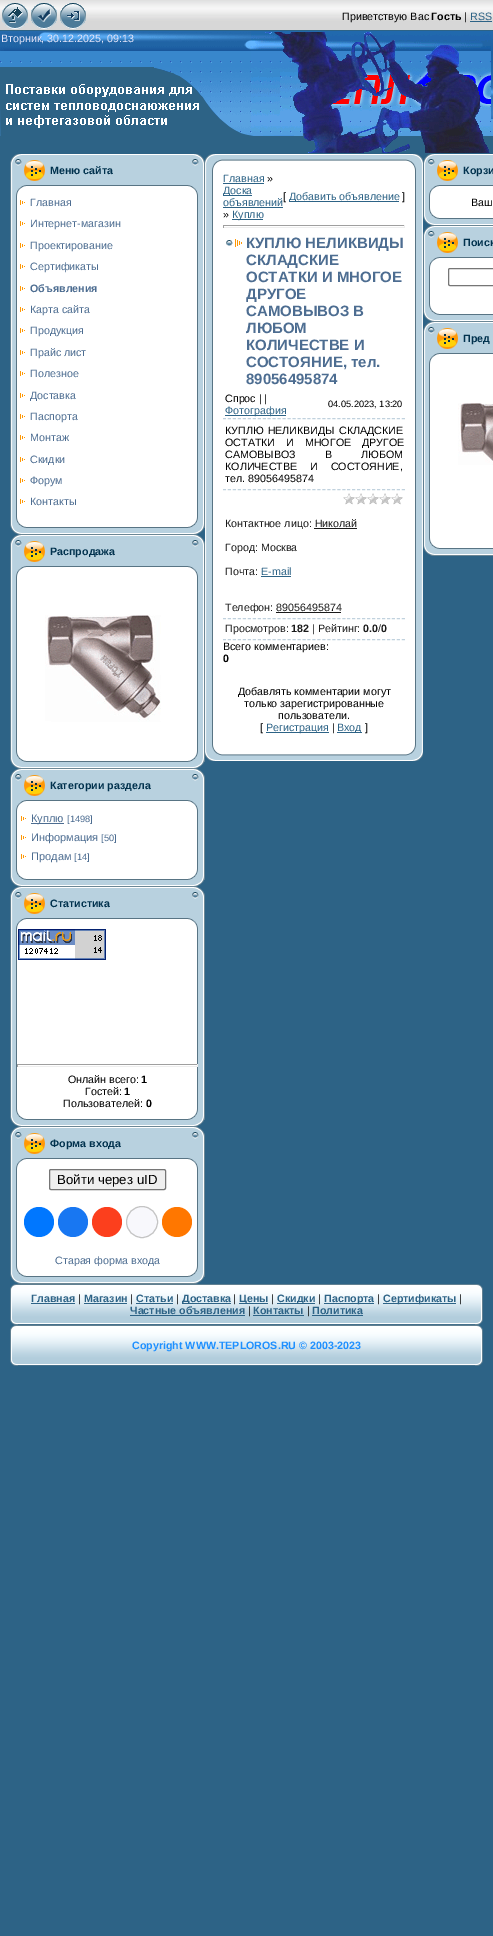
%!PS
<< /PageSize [493 1936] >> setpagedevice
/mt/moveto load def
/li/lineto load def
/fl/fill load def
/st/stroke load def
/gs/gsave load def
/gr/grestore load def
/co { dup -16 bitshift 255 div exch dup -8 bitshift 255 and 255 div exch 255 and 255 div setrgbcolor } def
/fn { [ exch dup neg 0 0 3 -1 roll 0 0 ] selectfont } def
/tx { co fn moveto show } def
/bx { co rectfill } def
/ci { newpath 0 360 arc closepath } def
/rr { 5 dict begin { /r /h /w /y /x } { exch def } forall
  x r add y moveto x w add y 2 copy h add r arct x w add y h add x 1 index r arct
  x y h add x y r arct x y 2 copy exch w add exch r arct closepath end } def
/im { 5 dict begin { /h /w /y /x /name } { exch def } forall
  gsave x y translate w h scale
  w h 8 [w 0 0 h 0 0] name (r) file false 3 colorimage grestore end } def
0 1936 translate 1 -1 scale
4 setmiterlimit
0 0 493 1936 16#2D6386 bx
(media/1.raw) 0 0 493 30 im
(media/2.raw) 2 3 26 26 im
(media/3.raw) 31 3 26 26 im
(media/4.raw) 60 3 26 26 im
470 21 22 1 16#2D6386 bx
(media/5.raw) 0 31 491 105 im
(media/6.raw) 265 32 225 121 im
(media/7.raw) 491 31 2 105 im
(media/8.raw) 10 154 195 42 im
(media/9.raw) 10 196 195 321 im
(media/10.raw) 20 200 5 5 im
(media/10.raw) 20 221 5 5 im
(media/10.raw) 20 243 5 5 im
(media/10.raw) 20 264 5 5 im
(media/10.raw) 20 286 5 5 im
(media/10.raw) 20 307 5 5 im
(media/10.raw) 20 328 5 5 im
(media/10.raw) 20 350 5 5 im
(media/10.raw) 20 371 5 5 im
(media/10.raw) 20 393 5 5 im
(media/10.raw) 20 414 5 5 im
(media/10.raw) 20 435 5 5 im
(media/10.raw) 20 457 5 5 im
(media/10.raw) 20 478 5 5 im
(media/10.raw) 20 499 5 5 im
(media/11.raw) 10 517 195 18 im
(media/8.raw) 10 535 195 42 im
(media/12.raw) 10 577 195 174 im
(media/13.raw) 45 614 116 108 im
(media/11.raw) 10 751 195 18 im
(media/8.raw) 10 769 195 42 im
(media/14.raw) 10 811 195 58 im
(media/10.raw) 21 816 5 5 im
31 823 33 1 16#4D6D91 bx
(media/10.raw) 21 835 5 5 im
(media/10.raw) 21 854 5 5 im
(media/11.raw) 10 869 195 18 im
(media/8.raw) 10 887 195 42 im
(media/15.raw) 10 929 195 180 im
(media/16.raw) 18 929 88 31 im
17 1064 181 1 16#9F9F9F bx
197 1064 1 3 16#EEEEEE bx
17 1066 181 1 16#EEEEEE bx
17 1064 1 3 16#9F9F9F bx
(media/11.raw) 10 1109 195 18 im
(media/8.raw) 10 1127 195 42 im
(media/17.raw) 10 1169 195 97 im
16#EFEFEF co
49.5 1169.5 116 20 1.5 rr gs fl gr
16#767676 co
st
16#0077FF co
39 1222 15 ci fl
16#1877F2 co
73 1222 15 ci fl
16#FC3F1D co
107 1222 15 ci fl
16#F8F8FC co
142 1222 15.5 ci gs fl gr
16#C4C4C4 co
st
16#FF7700 co
177 1222 15 ci fl
(media/18.raw) 205 154 18 18 im
(media/19.raw) 223 154 182 18 im
(media/20.raw) 405 154 18 18 im
(media/21.raw) 205 172 18 571 im
223 172 182 571 16#FFFFFF bx
223 183 41 1 16#2D6386 bx
223 195 29 1 16#2D6386 bx
223 207 60 1 16#2D6386 bx
232 219 31 1 16#2D6386 bx
289 201 110 1 16#2D6386 bx
223 225 182 1 16#9F9F9F bx
404 225 1 3 16#EEEEEE bx
223 227 182 1 16#EEEEEE bx
223 225 1 3 16#9F9F9F bx
(media/22.raw) 226 239 16 8 im
225 415 61 1 16#2D6386 bx
16#C1D2DE co
[3 1.97] 0 setdash
223 418.5 mt 405 418.5 li st
223 489.5 mt 405 489.5 li st
223 618.5 mt 405 618.5 li st
(media/23.raw) 343 493 60 12 im
314 528 43 1 16#1A1A1A bx
261 576 30 1 16#2D6386 bx
276 612 65 1 16#1A1A1A bx
16#C1D2DE co
223 639.5 mt 405 639.5 li st
266 732 63 1 16#2D6386 bx
337 732 25 1 16#2D6386 bx
(media/24.raw) 405 172 18 571 im
(media/25.raw) 205 743 18 18 im
(media/26.raw) 223 743 182 18 im
(media/27.raw) 405 743 18 18 im
(media/28.raw) 423 154 70 42 im
430 196 63 12 16#FFFFFF bx
(media/29.raw) 423 196 7 12 im
(media/30.raw) 423 208 70 18 im
(media/28.raw) 423 226 70 42 im
430 268 63 36 16#FFFFFF bx
(media/31.raw) 423 268 7 36 im
16#767676 co
[] 0 setdash
448.5 268.5 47 17 1.5 rr st
(media/30.raw) 423 304 70 18 im
(media/28.raw) 423 322 70 42 im
430 364 63 174 16#FFFFFF bx
(media/32.raw) 423 364 7 174 im
(media/33.raw) 458 403 35 62 im
(media/30.raw) 423 538 70 18 im
(media/34.raw) 10 1284 8 41 im
(media/35.raw) 18 1284 457 41 im
31 1303 44 1 16#2D6386 bx
84 1303 43 1 16#2D6386 bx
136 1303 37 1 16#2D6386 bx
182 1303 49 1 16#2D6386 bx
239 1303 29 1 16#2D6386 bx
277 1303 38 1 16#2D6386 bx
324 1303 50 1 16#2D6386 bx
383 1303 73 1 16#2D6386 bx
130 1315 115 1 16#2D6386 bx
253 1315 51 1 16#2D6386 bx
312 1315 51 1 16#2D6386 bx
(media/36.raw) 475 1284 8 41 im
(media/34.raw) 10 1325 8 41 im
(media/35.raw) 18 1325 457 41 im
(media/36.raw) 475 1325 8 41 im
(Приветствую Вас) 342 20 /LiberationSans-Regular 10.7 16#000000 tx
(Гость) 431 20 /LiberationSans-Bold 10.7 16#000000 tx
(|) 464 20 /LiberationSans-Regular 10.7 16#000000 tx
(RSS) 470 20 /LiberationSans-Regular 10.7 16#2D6386 tx
(Вторник, 30.12.2025, 09:13) 1 42 /LiberationSans-Regular 10.7 16#E6E6FA tx
(Меню сайта) 50 174 /LiberationSans-Bold 10.7 16#01324E tx
(Главная) 30 206 /LiberationSans-Regular 10.7 16#4D6D91 tx
(Интернет-магазин) 30 227 /LiberationSans-Regular 10.7 16#4D6D91 tx
(Проектирование) 30 249 /LiberationSans-Regular 10.7 16#4D6D91 tx
(Сертификаты) 30 270 /LiberationSans-Regular 10.7 16#4D6D91 tx
(Объявления) 30 292 /LiberationSans-Bold 10.7 16#4D6D91 tx
(Карта сайта) 30 313 /LiberationSans-Regular 10.7 16#4D6D91 tx
(Продукция) 30 334 /LiberationSans-Regular 10.7 16#4D6D91 tx
(Прайс лист) 30 356 /LiberationSans-Regular 10.7 16#4D6D91 tx
(Полезное) 30 377 /LiberationSans-Regular 10.7 16#4D6D91 tx
(Доставка) 30 399 /LiberationSans-Regular 10.7 16#4D6D91 tx
(Паспорта) 30 420 /LiberationSans-Regular 10.7 16#4D6D91 tx
(Монтаж) 30 441 /LiberationSans-Regular 10.7 16#4D6D91 tx
(Скидки) 30 463 /LiberationSans-Regular 10.7 16#4D6D91 tx
(Форум) 30 484 /LiberationSans-Regular 10.7 16#4D6D91 tx
(Контакты) 30 505 /LiberationSans-Regular 10.7 16#4D6D91 tx
(Распродажа) 50 555 /LiberationSans-Bold 10.7 16#01324E tx
(Категории раздела) 50 789 /LiberationSans-Bold 10.7 16#01324E tx
(Куплю) 31 822 /LiberationSans-Regular 11 16#4D6D91 tx
([1498]) 67 822 /LiberationSans-Regular 9.25 16#4D6D91 tx
(Информация) 31 841 /LiberationSans-Regular 11 16#4D6D91 tx
([50]) 101 841 /LiberationSans-Regular 9.25 16#4D6D91 tx
(Продам) 31 860 /LiberationSans-Regular 11 16#4D6D91 tx
([14]) 74 860 /LiberationSans-Regular 9.25 16#4D6D91 tx
(Статистика) 50 907 /LiberationSans-Bold 10.7 16#01324E tx
(Онлайн всего:) 68 1083 /LiberationSans-Regular 10.7 16#000000 tx
(1) 141 1083 /LiberationSans-Bold 10.7 16#000000 tx
(Гостей:) 85 1095 /LiberationSans-Regular 10.7 16#000000 tx
(1) 124 1095 /LiberationSans-Bold 10.7 16#000000 tx
(Пользователей:) 63 1107 /LiberationSans-Regular 10.7 16#000000 tx
(0) 146 1107 /LiberationSans-Bold 10.7 16#000000 tx
(Форма входа) 50 1147 /LiberationSans-Bold 10.7 16#01324E tx
(Войти через uID) 57 1184 /LiberationSans-Regular 13.25 16#000000 tx
(Старая форма входа) 55 1264 /LiberationSans-Regular 10.7 16#4D6D91 tx
(media/11.raw) 10 1266 195 18 im
(Главная) 223 182 /LiberationSans-Regular 10.7 16#2D6386 tx
(») 267 182 /LiberationSans-Regular 10.7 16#000000 tx
(Доска) 223 194 /LiberationSans-Regular 10.7 16#2D6386 tx
(объявлений) 223 206 /LiberationSans-Regular 10.7 16#2D6386 tx
(») 223 218 /LiberationSans-Regular 10.7 16#000000 tx
(Куплю) 232 218 /LiberationSans-Regular 10.7 16#2D6386 tx
([) 283 200 /LiberationSans-Regular 10.7 16#000000 tx
(Добавить объявление) 289 200 /LiberationSans-Regular 10.7 16#2D6386 tx
(]) 402 200 /LiberationSans-Regular 10.7 16#000000 tx
(КУПЛЮ НЕЛИКВИДЫ) 246 248 /LiberationSans-Bold 15 16#4D6D91 tx
(СКЛАДСКИЕ) 246 265 /LiberationSans-Bold 15 16#4D6D91 tx
(ОСТАТКИ И МНОГОЕ) 246 282 /LiberationSans-Bold 15 16#4D6D91 tx
(ДРУГОЕ) 246 299 /LiberationSans-Bold 15 16#4D6D91 tx
(САМОВЫВОЗ В) 246 316 /LiberationSans-Bold 15 16#4D6D91 tx
(ЛЮБОМ) 246 333 /LiberationSans-Bold 15 16#4D6D91 tx
(КОЛИЧЕСТВЕ И) 246 350 /LiberationSans-Bold 15 16#4D6D91 tx
(СОСТОЯНИЕ, тел.) 246 367 /LiberationSans-Bold 15 16#4D6D91 tx
(89056495874) 246 384 /LiberationSans-Bold 15 16#4D6D91 tx
(Спрос | |) 225 402 /LiberationSans-Regular 10.7 16#000000 tx
(Фотография) 225 414 /LiberationSans-Regular 10.7 16#2D6386 tx
(04.05.2023, 13:20) 328 407 /LiberationSans-Regular 9.25 16#000000 tx
/LiberationSans-Regular 10.7 fn
225 434 mt 1 0 32 (КУПЛЮ НЕЛИКВИДЫ СКЛАДСКИЕ) widthshow
225 446 mt 8 0 32 (ОСТАТКИ И МНОГОЕ ДРУГОЕ) widthshow
225 458 mt 26 0 32 (САМОВЫВОЗ В ЛЮБОМ) widthshow
225 470 mt 10 0 32 (КОЛИЧЕСТВЕ И СОСТОЯНИЕ,) widthshow
(тел. 89056495874) 225 482 /LiberationSans-Regular 10.7 16#000000 tx
(Контактное лицо: Николай) 225 527 /LiberationSans-Regular 10.7 16#1A1A1A tx
(Город: Москва) 225 551 /LiberationSans-Regular 10.7 16#1A1A1A tx
(Почта:) 225 575 /LiberationSans-Regular 10.7 16#1A1A1A tx
(E-mail) 261 575 /LiberationSans-Regular 10.7 16#2D6386 tx
(Телефон: 89056495874) 225 611 /LiberationSans-Regular 10.7 16#1A1A1A tx
(Просмотров:) 225 632 /LiberationSans-Regular 10.7 16#1A1A1A tx
(182) 291 632 /LiberationSans-Bold 10.7 16#1A1A1A tx
(| Рейтинг:) 312 632 /LiberationSans-Regular 10.7 16#1A1A1A tx
(0.0) 363 632 /LiberationSans-Bold 10.7 16#1A1A1A tx
(/) 378 632 /LiberationSans-Regular 10.7 16#1A1A1A tx
(0) 381 632 /LiberationSans-Bold 10.7 16#1A1A1A tx
(Всего комментариев:) 223 650 /LiberationSans-Regular 10.7 16#000000 tx
(0) 223 662 /LiberationSans-Bold 10.7 16#000000 tx
(Добавлять комментарии могут) 238 695 /LiberationSans-Regular 10.7 16#000000 tx
(только зарегистрированные) 244 707 /LiberationSans-Regular 10.7 16#000000 tx
(пользователи.) 278 719 /LiberationSans-Regular 10.7 16#000000 tx
([) 260 731 /LiberationSans-Regular 10.7 16#000000 tx
(Регистрация) 266 731 /LiberationSans-Regular 10.7 16#2D6386 tx
(|) 332 731 /LiberationSans-Regular 10.7 16#000000 tx
(Вход) 337 731 /LiberationSans-Regular 10.7 16#2D6386 tx
(]) 365 731 /LiberationSans-Regular 10.7 16#000000 tx
(Корзи) 463 174 /LiberationSans-Bold 10.7 16#01324E tx
(Ваш) 471 206 /LiberationSans-Regular 10.7 16#000000 tx
(Поиск) 463 246 /LiberationSans-Bold 10.7 16#01324E tx
(Пред) 463 342 /LiberationSans-Bold 10.7 16#01324E tx
(Главная) 31 1302 /LiberationSans-Bold 10.7 16#2D6386 tx
(|) 78 1302 /LiberationSans-Regular 10.7 16#000000 tx
(Магазин) 84 1302 /LiberationSans-Bold 10.7 16#2D6386 tx
(|) 130 1302 /LiberationSans-Regular 10.7 16#000000 tx
(Статьи) 136 1302 /LiberationSans-Bold 10.7 16#2D6386 tx
(|) 176 1302 /LiberationSans-Regular 10.7 16#000000 tx
(Доставка) 182 1302 /LiberationSans-Bold 10.7 16#2D6386 tx
(|) 233 1302 /LiberationSans-Regular 10.7 16#000000 tx
(Цены) 239 1302 /LiberationSans-Bold 10.7 16#2D6386 tx
(|) 271 1302 /LiberationSans-Regular 10.7 16#000000 tx
(Скидки) 277 1302 /LiberationSans-Bold 10.7 16#2D6386 tx
(|) 318 1302 /LiberationSans-Regular 10.7 16#000000 tx
(Паспорта) 324 1302 /LiberationSans-Bold 10.7 16#2D6386 tx
(|) 377 1302 /LiberationSans-Regular 10.7 16#000000 tx
(Сертификаты) 383 1302 /LiberationSans-Bold 10.7 16#2D6386 tx
(|) 459 1302 /LiberationSans-Regular 10.7 16#000000 tx
(Частные объявления) 130 1314 /LiberationSans-Bold 10.7 16#2D6386 tx
(|) 248 1314 /LiberationSans-Regular 10.7 16#000000 tx
(Контакты) 253 1314 /LiberationSans-Bold 10.7 16#2D6386 tx
(|) 307 1314 /LiberationSans-Regular 10.7 16#000000 tx
(Политика) 312 1314 /LiberationSans-Bold 10.7 16#2D6386 tx
(Copyright WWW.TEPLOROS.RU © 2003-2023) 132 1349 /LiberationSans-Bold 10.7 16#1E90FF tx
showpage
